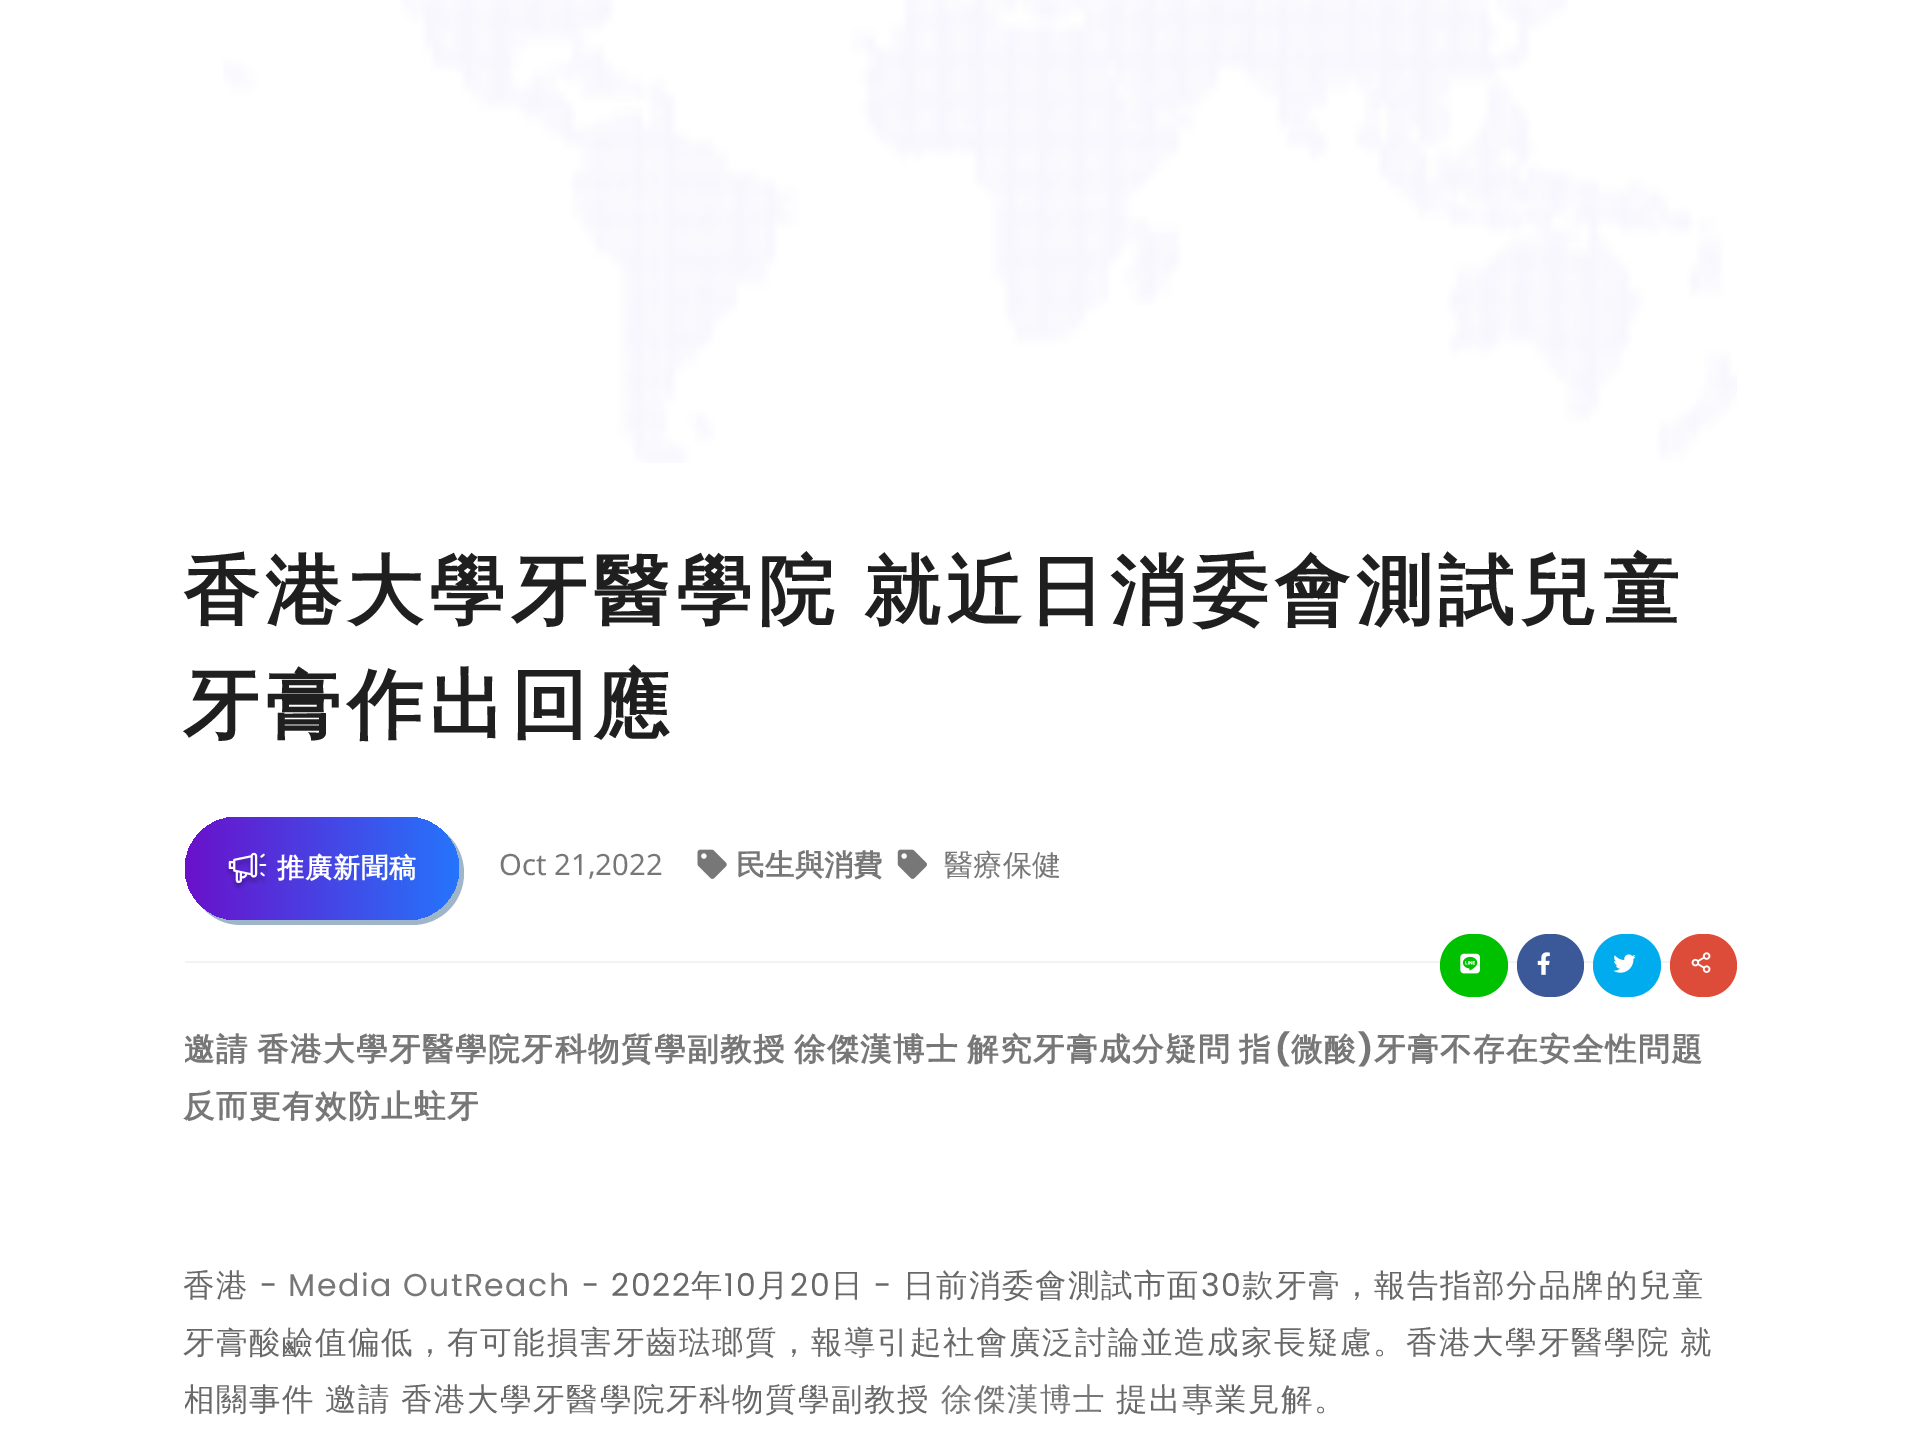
%!PS
<< /PageSize [1919 1433] >> setpagedevice
/mt/moveto load def
/li/lineto load def
/ct/curveto load def
/cp/closepath load def
/fl/fill load def
/gs/gsave load def
/gr/grestore load def
/co { dup -16 bitshift 255 div exch dup -8 bitshift 255 and 255 div exch 255 and 255 div setrgbcolor } def
/fn { [ exch dup neg 0 0 3 -1 roll 0 0 ] selectfont } def
/tx { co fn moveto show } def
/bx { co rectfill } def
/rr { 5 dict begin { /r /h /w /y /x } { exch def } forall
  x r add y moveto x w add y 2 copy h add r arct x w add y h add x 1 index r arct
  x y h add x y r arct x y 2 copy exch w add exch r arct closepath end } def
/im { 5 dict begin { /h /w /y /x /name } { exch def } forall
  gsave x y translate w h scale
  w h 8 [w 0 0 h 0 0] name (r) file false 3 colorimage grestore end } def
0 1433 translate 1 -1 scale
4 setmiterlimit
0 0 1919 1433 16#FFFFFF bx
(media/1.raw) 223 0 1514 463 im
185 961 1552 2 16#F3F3F3 bx
16#9FB5C9 co
202 907 mt 211 918 225 925 241 925 ct 412 925 li 441 925 464 902 464 873 ct 464 856 456 841 444 832 ct 453 841 459 854 459 868 ct 459 897 436 920 407 920 ct 236 920 li 223 920 211 915 202 907 ct cp fl
gs 185 817 274 103 51.5 rr clip newpath
<< /ShadingType 2 /ColorSpace /DeviceRGB /Coords [185 869 459 869] /Extend [true true] /Function << /FunctionType 2 /Domain [0 1] /C0 [.416 .067 .796] /C1 [.145 .459 .988] /N 1 >> >> shfill gr
(media/2.raw) 225 852 44 38 im
(media/3.raw) 697 849 30 30 im
(media/4.raw) 897 849 30 30 im
16#00C100 co
1440 934 68 63 31.5 rr fl
(media/5.raw) 1460 953 20 21 im
16#3B5998 co
1517 934 67 63 31.5 rr fl
(media/6.raw) 1537 952 13 23 im
16#00ACED co
1593 934 68 63 31.5 rr fl
(media/7.raw) 1613 954 23 19 im
16#DD4B39 co
1670 934 67 63 31.5 rr fl
(media/8.raw) 1691 952 20 21 im
/WenQuanYiZenHei-Bold 76 fn
16#1F1F1F co
183 617 mt -5 0 32 6.1 0 (香港大學牙醫學院 就近日消委會測試兒童) awidthshow
183 731 mt 6.1 0 (牙膏作出回應) ashow
/WenQuanYiZenHei-Bold 27 fn
16#FFFFFF co
277 877 mt 1 0 (推廣新聞稿) ashow
(Oct 21,2022) 499 875 /NotoSans-Regular 29.25 16#777777 tx
(民生與消費) 736 875 /WenQuanYiZenHei-Bold 29.25 16#777777 tx
(醫療保健) 944 875 /WenQuanYiZenHei-Medium 29.25 16#777777 tx
gs
185 1022 1552 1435 rectclip
/WenQuanYiZenHei-Bold 31.5 fn
183 1060 mt -3 0 32 1.55 0 (邀請 香港大學牙醫學院牙科物質學副教授 徐傑漢博士 解究牙膏成分疑問 指) awidthshow
gr
/Poppins-Bold 31.5 fn
1275 1060 mt 1.55 0 (\() ashow
/WenQuanYiZenHei-Bold 31.5 fn
1291 1060 mt 1.55 0 (微酸) ashow
/Poppins-Bold 31.5 fn
1358 1060 mt 1.55 0 (\)) ashow
/WenQuanYiZenHei-Bold 31.5 fn
1374 1060 mt 1.55 0 (牙膏不存在安全性問題) ashow
183 1117 mt 1.55 0 (反而更有效防止蛀牙) ashow
/WenQuanYiZenHei-Medium 31.5 fn
16#696969 co
183 1296 mt 1.55 0 (香港) ashow
/Poppins-Regular 31.5 fn
260 1296 mt 1.55 0 (-) ashow
16#777777 co
288 1296 mt 1.55 0 (Media OutReach) ashow
16#696969 co
582 1296 mt 1.55 0 (- 2022) ashow
/WenQuanYiZenHei-Medium 31.5 fn
691 1296 mt 1.55 0 (年) ashow
/Poppins-Regular 31.5 fn
724 1296 mt 1.55 0 (10) ashow
/WenQuanYiZenHei-Medium 31.5 fn
757 1296 mt 1.55 0 (月) ashow
/Poppins-Regular 31.5 fn
790 1296 mt 1.55 0 (20) ashow
/WenQuanYiZenHei-Medium 31.5 fn
831 1296 mt 1.55 0 (日) ashow
/Poppins-Regular 31.5 fn
874 1296 mt 1.55 0 (-) ashow
/WenQuanYiZenHei-Medium 31.5 fn
903 1296 mt 1.55 0 (日前消委會測試市面) ashow
/Poppins-Regular 31.5 fn
1201 1296 mt 1.55 0 (30) ashow
/WenQuanYiZenHei-Medium 31.5 fn
1242 1296 mt 1.55 0 (款牙膏，報告指部分品牌的兒童) ashow
183 1353 mt -1 0 32 1.55 0 (牙膏酸鹼值偏低，有可能損害牙齒琺瑯質，報導引起社會廣泛討論並造成家長疑慮。香港大學牙醫學院 就) awidthshow
gs
185 1022 1552 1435 rectclip
183 1410 mt -1 0 32 1.55 0 (相關事件 邀請 香港大學牙醫學院牙科物質學副教授) awidthshow
gr
16#777777 co
941 1410 mt 1.55 0 (徐傑漢博士) ashow
16#696969 co
1116 1410 mt 1.55 0 (提出專業見解。) ashow
showpage
